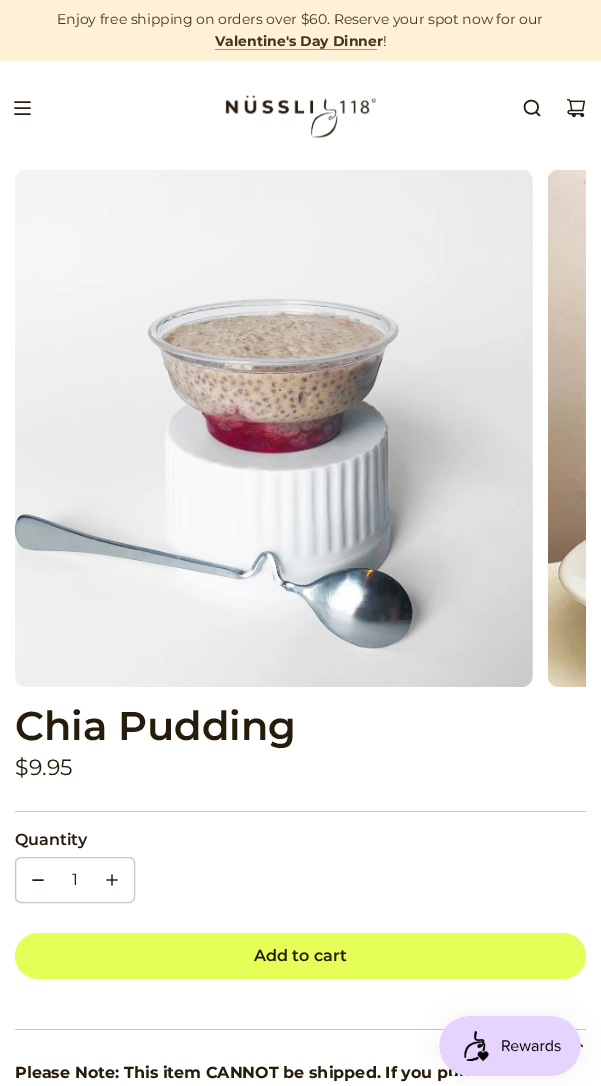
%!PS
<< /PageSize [601 1086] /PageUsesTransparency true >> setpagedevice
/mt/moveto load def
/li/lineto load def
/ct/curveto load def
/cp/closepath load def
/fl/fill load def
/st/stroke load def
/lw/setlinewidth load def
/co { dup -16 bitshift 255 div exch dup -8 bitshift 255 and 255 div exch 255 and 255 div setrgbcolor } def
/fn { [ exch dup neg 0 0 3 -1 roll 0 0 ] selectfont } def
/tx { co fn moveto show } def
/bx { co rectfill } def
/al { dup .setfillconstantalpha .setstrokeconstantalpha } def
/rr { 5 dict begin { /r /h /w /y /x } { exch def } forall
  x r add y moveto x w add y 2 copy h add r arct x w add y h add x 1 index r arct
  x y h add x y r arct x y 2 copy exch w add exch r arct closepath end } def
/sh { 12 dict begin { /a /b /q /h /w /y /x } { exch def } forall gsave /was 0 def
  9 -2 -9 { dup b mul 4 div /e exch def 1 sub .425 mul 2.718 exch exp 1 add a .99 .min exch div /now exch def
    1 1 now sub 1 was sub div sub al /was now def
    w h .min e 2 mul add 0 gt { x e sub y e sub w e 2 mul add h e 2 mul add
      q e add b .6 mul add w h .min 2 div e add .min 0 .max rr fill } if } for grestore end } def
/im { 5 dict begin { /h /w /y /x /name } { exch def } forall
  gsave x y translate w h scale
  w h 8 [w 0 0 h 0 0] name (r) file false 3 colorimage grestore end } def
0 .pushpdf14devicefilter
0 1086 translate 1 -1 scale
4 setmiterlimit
0 0 601 1086 16#FFFFFF bx
0 0 601 61 16#FEF1D8 bx
215 49 162 1 16#A1937A bx
16#261C0C co
1.5 lw
1 setlinecap
1 setlinejoin
15 102 mt 30 102 li 15 108 mt 30 108 li 15 114 mt 30 114 li st
(media/1.raw) 225 95 151 43 im
536 112 mt 539.5 115.5 li 524.5 107 mt 524.5 116 538 116 538 107 ct 538 98.5 524.5 98.5 524.5 107 ct cp st
(media/2.raw) 566 98 20 20 im
(media/3.raw) 15 170 518 517 im
(media/4.raw) 548 170 38 517 im
15 811 571 1 16#C9C6C2 bx
1 lw
0 setlinecap
0 setlinejoin
15.5 857.5 119 45 5.5 rr st
16#261C0C co
1.5 lw
1 setlinecap
1 setlinejoin
33 880 mt 43 880 li st
(media/5.raw) 106 874 12 12 im
16#E6FF58 co
15 933 571 46 23 rr fl
15 1029 571 1 16#C9C6C2 bx
16#261C0C co
1.2 lw
574.5 1046.5 mt 578.5 1042.5 li 582.5 1046.5 li st
16#000000 co
439 1016 142 60 30 12.5 .05 sh
(Enjoy free shipping on orders over $60. Reserve your spot now for our) 57 24 /Montserrat-Regular 14 16#44351B tx
(Valentine's Day Dinne) 215 46 /Montserrat-Bold 14 16#44351B tx
(r) 377 46 /Montserrat-Bold 14 16#44351B tx
(!) 383 46 /Montserrat-Regular 14 16#44351B tx
(Chia Pudding) 15 740 /Montserrat-SemiBold 40 16#261C0C tx
($9.95) 15 775 /Montserrat-Regular 22 16#261C0C tx
(Quantity) 15 845 /Montserrat-SemiBold 16 16#261C0C tx
(1) 72 885 /Montserrat-Regular 16 16#261C0C tx
(Add to cart) 254 961 /Montserrat-SemiBold 16 16#261C0C tx
(Please Note: This item CANNOT be shipped. If you p) 15 1078 /Montserrat-Bold 16 16#261C0C tx
(media/6.raw) 439 1016 142 60 im
.poppdf14devicefilter showpage
